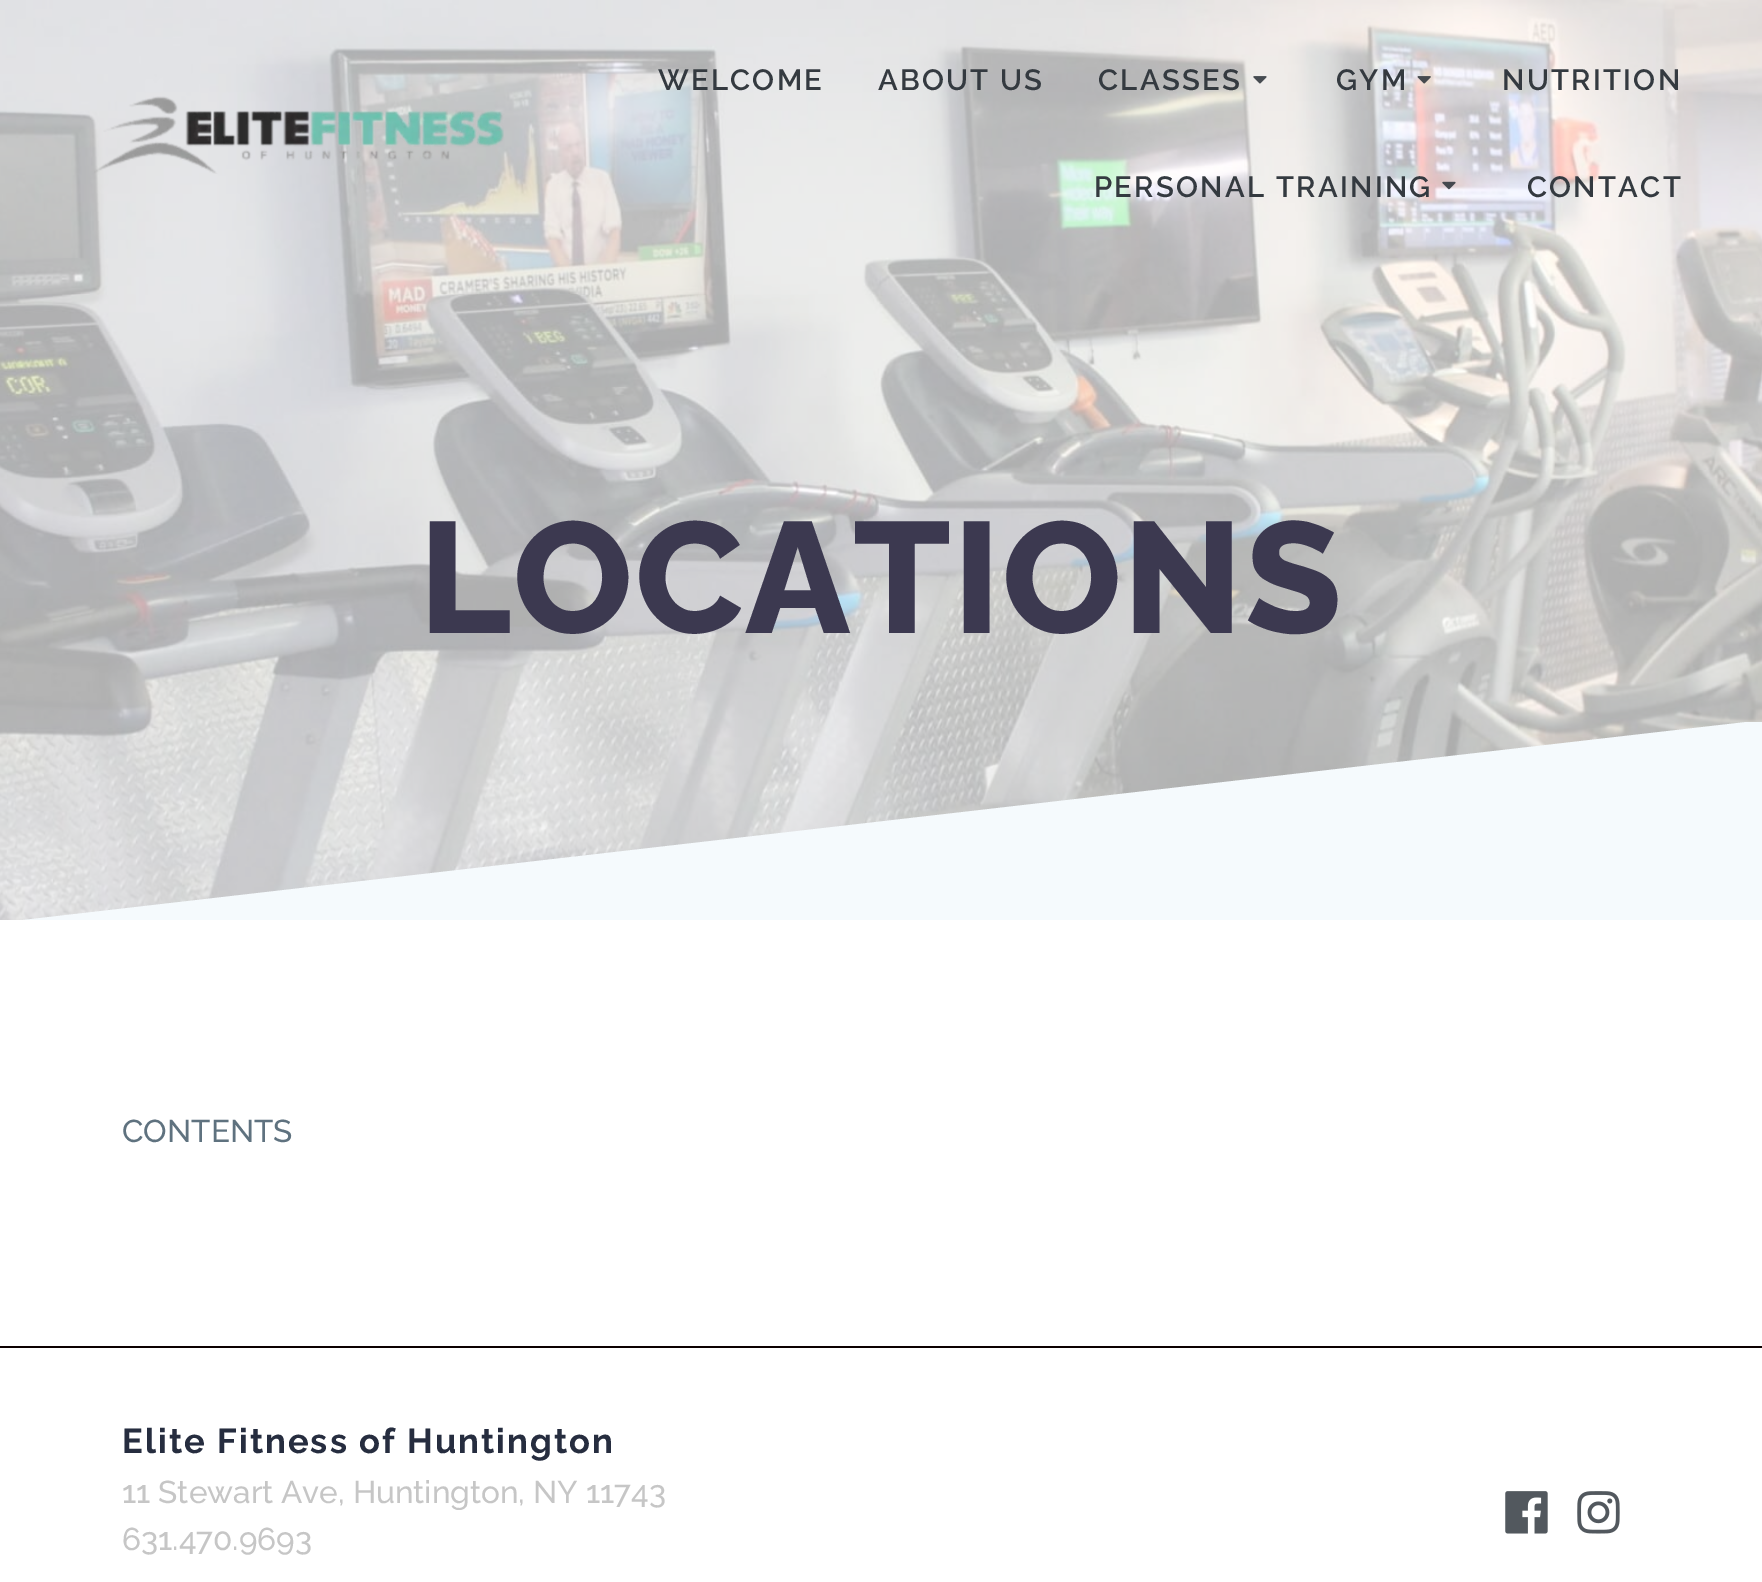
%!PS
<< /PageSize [1762 1582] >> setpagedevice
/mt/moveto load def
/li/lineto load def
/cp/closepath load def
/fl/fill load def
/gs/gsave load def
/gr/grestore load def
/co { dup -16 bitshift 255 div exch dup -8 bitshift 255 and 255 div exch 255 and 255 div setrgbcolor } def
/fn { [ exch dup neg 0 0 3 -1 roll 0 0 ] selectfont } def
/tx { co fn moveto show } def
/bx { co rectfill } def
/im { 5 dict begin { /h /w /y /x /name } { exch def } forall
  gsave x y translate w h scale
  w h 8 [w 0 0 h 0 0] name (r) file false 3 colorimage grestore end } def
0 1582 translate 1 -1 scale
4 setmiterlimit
0 0 1762 1582 16#FFFFFF bx
(media/5.raw) 0 0 1762 920 im
(media/1.raw) 94 96 410 78 im
(media/2.raw) 1253 76 14 8 im
(media/3.raw) 1417 76 14 8 im
(media/4.raw) 1442 181 14 9 im
gs
0 722 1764 203 rectclip
16#F5FAFD co
-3 923 mt 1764 923 li 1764 720 li cp fl
gr
0 920 1762 3 16#FFFFFF bx
0 1346 1762 2 16#0C0000 bx
(media/6.raw) 1505 1491 43 43 im
(media/7.raw) 1577 1491 43 43 im
/Raleway-SemiBold 29.25 fn
16#343A40 co
658 90 mt 2.25 0 (WELCOME) ashow
878 90 mt 2.25 0 (ABOUT US) ashow
1098 90 mt 2.25 0 (CLASSES) ashow
1336 90 mt 2.25 0 (GYM) ashow
1502 90 mt 2.25 0 (NUTRITION) ashow
1094 197 mt 2.25 0 (PERSONAL TRAINING) ashow
1527 197 mt 2.25 0 (CONTACT) ashow
/Raleway-ExtraBold 157.5 fn
16#3C3950 co
419 633 mt 2 0 (LOCATIONS) ashow
(CONTENTS) 122 1142 /Raleway-Medium 31.5 16#5F727F tx
/Raleway-Bold 34.6 fn
16#262D3F co
122 1453 mt 2 0 (Elite Fitness of Huntington) ashow
(11 Stewart Ave, Huntington, NY 11743) 122 1503 /Raleway-Medium 31.5 16#C6C6C6 tx
(631.470.9693) 122 1550 /Raleway-Medium 31.5 16#C6C6C6 tx
showpage
